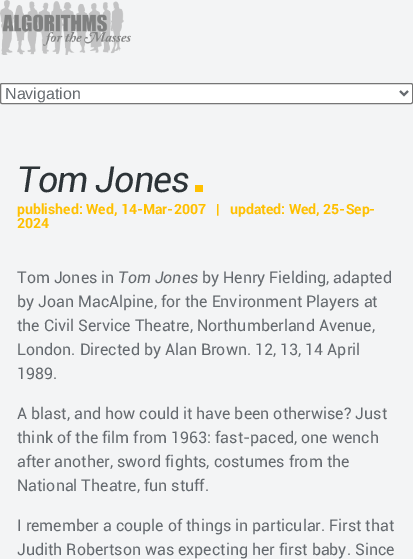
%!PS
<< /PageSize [413 559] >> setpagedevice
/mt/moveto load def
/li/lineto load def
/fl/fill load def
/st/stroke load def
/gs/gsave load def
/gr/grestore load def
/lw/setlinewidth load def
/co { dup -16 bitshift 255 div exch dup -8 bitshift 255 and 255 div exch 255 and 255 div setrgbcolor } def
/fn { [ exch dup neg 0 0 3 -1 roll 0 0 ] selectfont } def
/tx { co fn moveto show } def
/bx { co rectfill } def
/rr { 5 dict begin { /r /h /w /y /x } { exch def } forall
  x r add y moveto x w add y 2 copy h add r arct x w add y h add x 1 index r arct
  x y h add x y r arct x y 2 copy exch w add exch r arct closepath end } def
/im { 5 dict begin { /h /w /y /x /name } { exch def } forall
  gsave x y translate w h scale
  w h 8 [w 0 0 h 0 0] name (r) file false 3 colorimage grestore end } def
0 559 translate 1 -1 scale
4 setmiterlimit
0 0 413 559 16#F3F4F5 bx
(media/1.raw) 0 0 131 55 im
16#FFFFFF co
.5 83.5 412 20 1.5 rr gs fl gr
16#767676 co
st
16#656A6F co
2 lw
400 91 mt 404 95 li 408 91 li st
(Navigation) 5 99 /LiberationSans-Regular 16 16#656A6F tx
/Roboto-Italic 36 fn
16#2D3438 co
17 192 mt -1 0 (Tom Jones) ashow
/Roboto-Bold 56 fn
16#FFC000 co
191 192 mt -1 0 (.) ashow
(published: Wed, 14-Mar-2007) 17 214 /Roboto-Bold 14 16#FFC000 tx
(|) 216 214 /Roboto-Bold 14 16#FFC000 tx
(updated: Wed, 25-Sep-) 230 214 /Roboto-Bold 14 16#FFC000 tx
(2024) 17 228 /Roboto-Bold 14 16#FFC000 tx
(Tom Jones in) 17 283 /Roboto-Regular 16 16#656A6F tx
(Tom Jones) 118 283 /Roboto-Italic 16 16#656A6F tx
(by Henry Fielding, adapted) 202 283 /Roboto-Regular 16 16#656A6F tx
(by Joan MacAlpine, for the Environment Players at) 17 307 /Roboto-Regular 16 16#656A6F tx
(the Civil Service Theatre, Northumberland Avenue,) 17 331 /Roboto-Regular 16 16#656A6F tx
(London. Directed by Alan Brown. 12, 13, 14 April) 17 355 /Roboto-Regular 16 16#656A6F tx
(1989.) 17 379 /Roboto-Regular 16 16#656A6F tx
(A blast, and how could it have been otherwise? Just) 17 419 /Roboto-Regular 16 16#656A6F tx
(think of the film from 1963: fast-paced, one wench) 17 443 /Roboto-Regular 16 16#656A6F tx
(after another, sword fights, costumes from the) 17 467 /Roboto-Regular 16 16#656A6F tx
(National Theatre, fun stuff.) 17 491 /Roboto-Regular 16 16#656A6F tx
(I remember a couple of things in particular. First that) 17 531 /Roboto-Regular 16 16#656A6F tx
(Judith Robertson was expecting her first baby. Since) 17 555 /Roboto-Regular 16 16#656A6F tx
showpage
